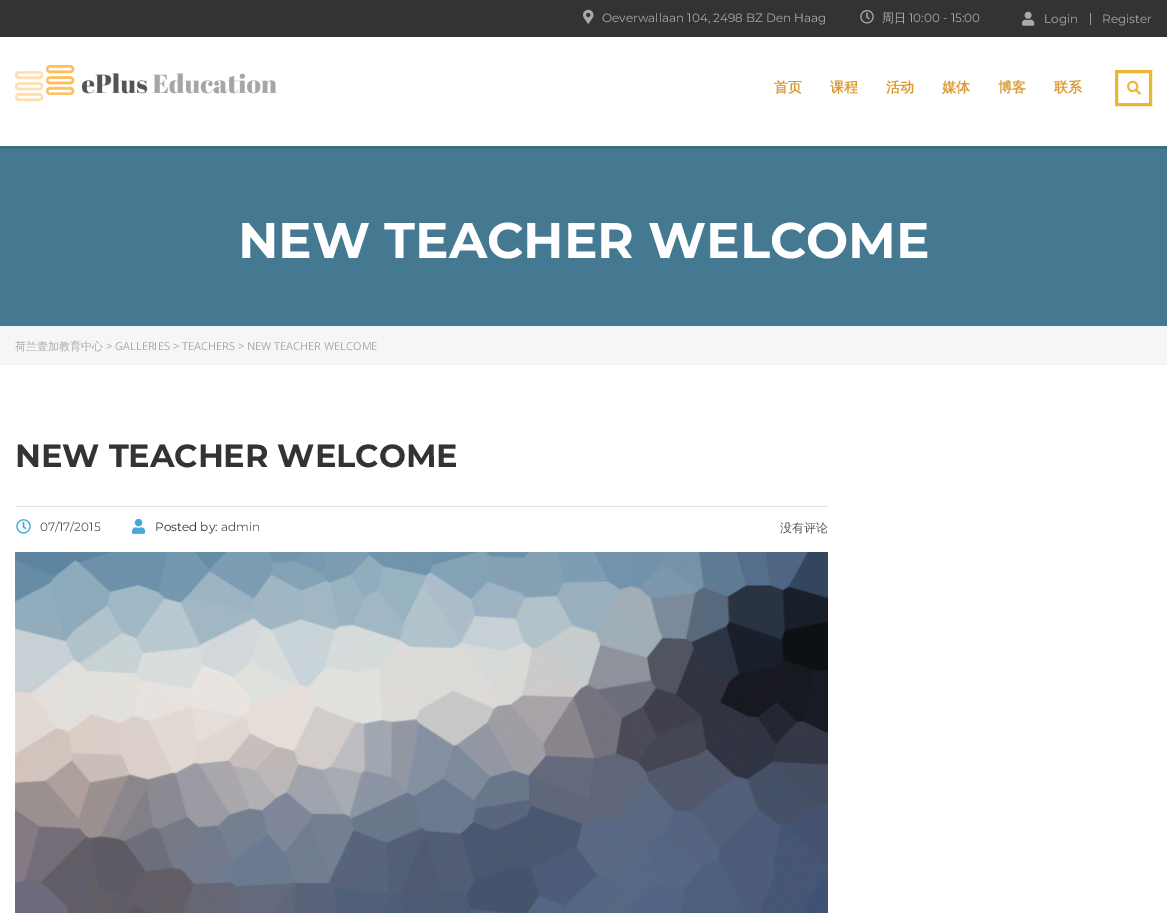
%!PS
<< /PageSize [1167 913] >> setpagedevice
/lw/setlinewidth load def
/co { dup -16 bitshift 255 div exch dup -8 bitshift 255 and 255 div exch 255 and 255 div setrgbcolor } def
/fn { [ exch dup neg 0 0 3 -1 roll 0 0 ] selectfont } def
/tx { co fn moveto show } def
/bx { co rectfill } def
/im { 5 dict begin { /h /w /y /x /name } { exch def } forall
  gsave x y translate w h scale
  w h 8 [w 0 0 h 0 0] name (r) file false 3 colorimage grestore end } def
0 913 translate 1 -1 scale
4 setmiterlimit
0 0 1167 913 16#FFFFFF bx
0 0 1167 37 16#333333 bx
(media/1.raw) 583 9 11 15 im
(media/2.raw) 860 10 14 14 im
(media/3.raw) 1022 11 13 15 im
1090 13 1 12 16#9A9A9A bx
(media/4.raw) 15 65 262 36 im
16#EAB830 co
3 lw
1116.5 71.5 34 33 rectstroke
(media/5.raw) 1127 80 14 15 im
0 146 1167 3 16#3E6D83 bx
0 149 1167 177 16#457992 bx
0 326 1167 38 16#F6F6F6 bx
0 364 1167 1 16#F0F2F5 bx
15 506 813 1 16#E1E2E4 bx
(media/6.raw) 16 519 15 15 im
(media/7.raw) 132 518 14 16 im
(media/8.raw) 15 552 813 361 im
(Oeverwallaan 104, 2498 BZ Den Haag) 602 22 /Montserrat-Regular 12 16#AAAAAA tx
(周日) 882 22 /WenQuanYiZenHei-Medium 12 16#AAAAAA tx
(10:00 - 15:00) 909 22 /Montserrat-Regular 12 16#AAAAAA tx
(Login) 1044 23 /Montserrat-Regular 12 16#AAAAAA tx
(Register) 1102 23 /Montserrat-Regular 12 16#AAAAAA tx
(首页) 774 92 /WenQuanYiZenHei-Bold 14 16#DD9933 tx
(课程) 830 92 /WenQuanYiZenHei-Bold 14 16#DD9933 tx
(活动) 886 92 /WenQuanYiZenHei-Bold 14 16#DD9933 tx
(媒体) 942 92 /WenQuanYiZenHei-Bold 14 16#DD9933 tx
(博客) 998 92 /WenQuanYiZenHei-Bold 14 16#DD9933 tx
(联系) 1054 92 /WenQuanYiZenHei-Bold 14 16#DD9933 tx
(NEW TEACHER WELCOME) 238 258 /Montserrat-Bold 50 16#FFFFFF tx
(荷兰壹加教育中心) 15 350 /WenQuanYiZenHei-Medium 11 16#AAAAAA tx
(> GALLERIES > TEACHERS > NEW TEACHER WELCOME) 106 350 /OpenSans-Regular 11 16#AAAAAA tx
(NEW TEACHER WELCOME) 15 467 /Montserrat-Bold 32 16#333333 tx
(07/17/2015) 40 531 /Montserrat-Regular 12 16#555555 tx
(Posted by:) 155 531 /Montserrat-Regular 12 16#333333 tx
(admin) 221 531 /Montserrat-Regular 12 16#555555 tx
(没有评论) 780 532 /WenQuanYiZenHei-Medium 12 16#555555 tx
showpage
